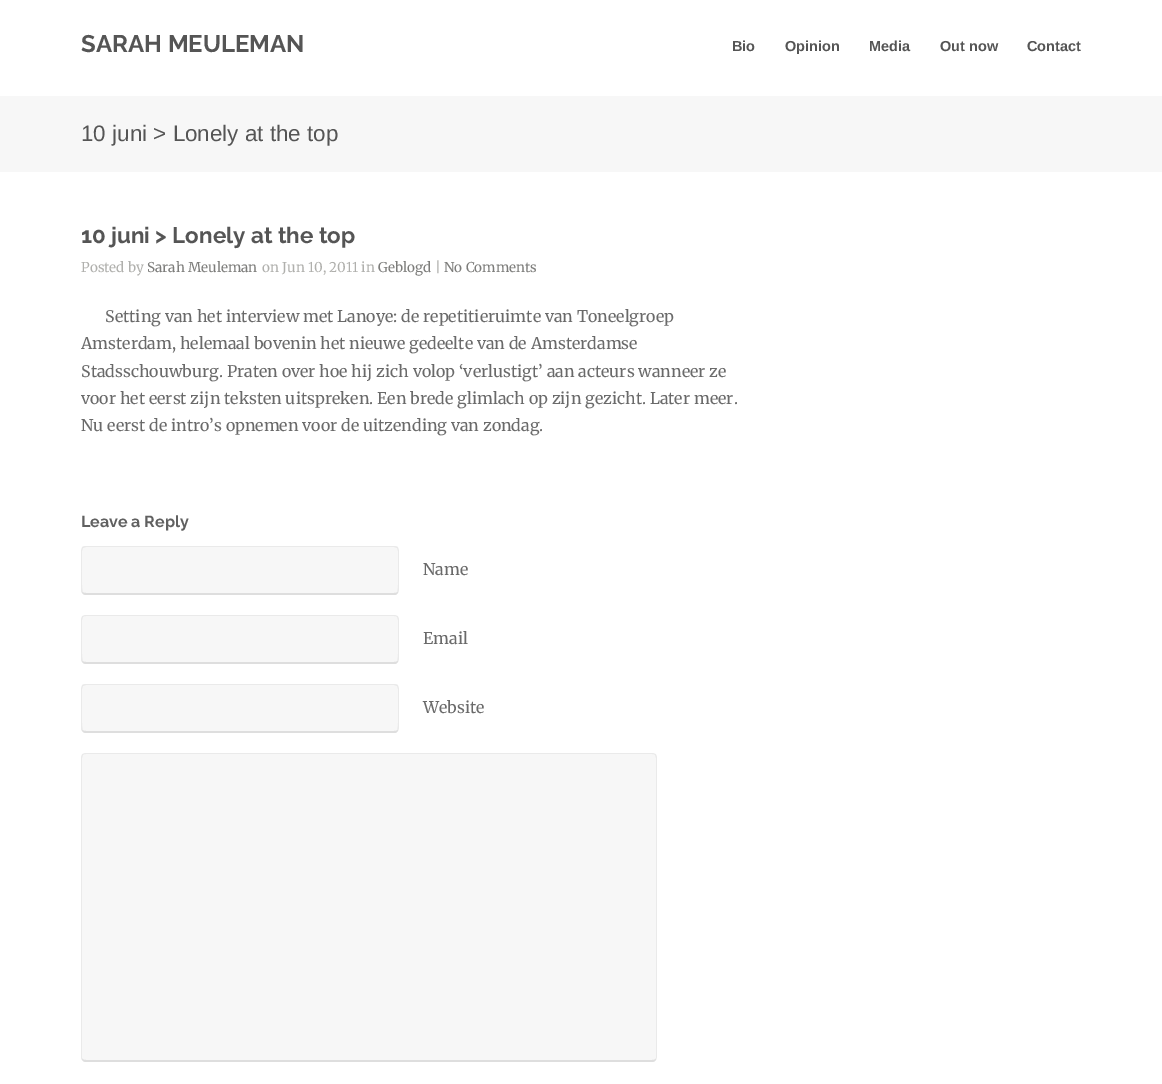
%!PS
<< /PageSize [1162 1084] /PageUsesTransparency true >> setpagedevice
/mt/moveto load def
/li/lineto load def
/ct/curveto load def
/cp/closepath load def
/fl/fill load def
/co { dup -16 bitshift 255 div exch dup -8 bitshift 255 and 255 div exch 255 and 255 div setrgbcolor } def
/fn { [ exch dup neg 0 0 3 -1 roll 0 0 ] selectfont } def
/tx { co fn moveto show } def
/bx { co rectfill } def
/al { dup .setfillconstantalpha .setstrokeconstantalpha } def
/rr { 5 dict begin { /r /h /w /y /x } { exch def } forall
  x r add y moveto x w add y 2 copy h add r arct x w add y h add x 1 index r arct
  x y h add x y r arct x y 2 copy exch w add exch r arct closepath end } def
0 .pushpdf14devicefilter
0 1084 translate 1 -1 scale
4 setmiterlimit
0 0 1162 1084 16#FFFFFF bx
0 96 1162 76 16#F7F7F7 bx
81 546 318 49 5 rr fl
0.05 al
16#000000 co
86 546 mt 84 546 83 546 82 547 ct 83 548 li 84 548 85 547 86 547 ct 394 547 li 395 547 396 548 397 548 ct 398 547 li 397 546 396 546 394 546 ct cp fl
399 590 mt 399 551 li 399 550 398 548 398 547 ct 397 548 li 398 551 li 398 554 399 590 397 592 ct 398 593 li cp fl
0.1 al
86 595 mt 396 595 li 398 593 li 397 592 li 397 593 395 593 394 593 ct 86 593 li 85 593 83 593 83 592 ct 82 593 li 83 594 84 595 86 595 ct cp fl
0.05 al
81 551 mt 81 590 li 81 591 81 592 82 593 ct 83 592 li 81 590 82 554 82 551 ct 83 548 li 82 547 li 82 548 81 550 81 551 ct cp fl
1 al
16#F7F7F7 co
81 615 318 49 5 rr fl
0.05 al
16#000000 co
86 615 mt 84 615 83 616 82 616 ct 83 617 li 84 616 85 616 86 616 ct 394 616 li 395 616 396 616 397 617 ct 398 616 li 397 616 396 615 394 615 ct cp fl
399 659 mt 399 620 li 399 618 398 617 398 616 ct 397 617 li 398 620 li 398 623 399 659 397 661 ct 398 662 li cp fl
0.1 al
86 664 mt 396 664 li 398 662 li 397 661 li 397 662 395 662 394 662 ct 86 662 li 85 662 83 662 83 661 ct 82 662 li 83 663 84 664 86 664 ct cp fl
0.05 al
81 620 mt 81 659 li 81 660 81 661 82 662 ct 83 661 li 81 659 82 623 82 620 ct 83 617 li 82 616 li 82 617 81 618 81 620 ct cp fl
1 al
16#F7F7F7 co
81 684 318 49 5 rr fl
0.05 al
16#000000 co
86 684 mt 84 684 83 684 82 685 ct 83 686 li 84 686 85 685 86 685 ct 394 685 li 395 685 396 686 397 686 ct 398 685 li 397 684 396 684 394 684 ct cp fl
399 728 mt 399 689 li 399 688 398 686 398 685 ct 397 686 li 398 689 li 398 692 399 728 397 730 ct 398 731 li cp fl
0.1 al
86 733 mt 396 733 li 398 731 li 397 730 li 397 731 395 731 394 731 ct 86 731 li 85 731 83 731 83 730 ct 82 731 li 83 732 84 733 86 733 ct cp fl
0.05 al
81 689 mt 81 728 li 81 729 81 730 82 731 ct 83 730 li 81 728 82 692 82 689 ct 83 686 li 82 685 li 82 686 81 688 81 689 ct cp fl
1 al
16#F7F7F7 co
81 753 576 309 5 rr fl
0.05 al
16#000000 co
86 753 mt 84 753 83 754 82 754 ct 83 755 li 84 754 85 754 86 754 ct 652 754 li 653 754 654 754 655 755 ct 656 754 li 655 754 654 753 652 753 ct cp fl
657 1057 mt 657 758 li 657 756 656 755 656 754 ct 655 755 li 656 758 li 656 957 li 656 1058 li 655 1059 li 656 1060 li cp fl
0.1 al
86 1062 mt 652 1062 li 654 1062 655 1061 656 1060 ct 655 1059 li 655 1060 653 1060 652 1060 ct 86 1060 li 85 1060 83 1060 83 1059 ct 82 1060 li 83 1061 84 1062 86 1062 ct cp fl
0.05 al
81 758 mt 81 1057 li 81 1058 81 1059 82 1060 ct 83 1059 li 82 1058 li 82 957 li 82 758 li 83 755 li 82 754 li 82 755 81 756 81 758 ct cp fl
1 al
(SARAH MEULEMAN) 81 52 /Raleway-Bold 24 16#555555 tx
(Bio) 732 51 /LiberationSans-Bold 14.5 16#555555 tx
(Opinion) 785 51 /LiberationSans-Bold 14.5 16#555555 tx
(Media) 869 51 /LiberationSans-Bold 14.5 16#555555 tx
(Out now) 940 51 /LiberationSans-Bold 14.5 16#555555 tx
(Contact) 1027 51 /LiberationSans-Bold 14.5 16#555555 tx
(10 juni > Lonely at the top) 81 141 /LiberationSans-Regular 22.4 16#555555 tx
(10 juni > Lonely at the top) 81 243 /Raleway-Bold 22.4 16#555555 tx
(Posted by) 81 272 /Merriweather-Regular 13.5 16#B0B0AD tx
(Sarah Meuleman) 147 272 /Merriweather-Regular 13.5 16#7D7D7B tx
(on Jun 10, 2011 in) 262 272 /Merriweather-Regular 13.5 16#B0B0AD tx
(Geblogd) 378 272 /Merriweather-Regular 13.5 16#7D7D7B tx
(|) 435 272 /Merriweather-Regular 13.5 16#B0B0AD tx
(No Comments) 444 272 /Merriweather-Regular 13.5 16#7D7D7B tx
(Setting van het interview met Lanoye: de repetitieruimte van Toneelgroep) 105 322 /Merriweather-Regular 16 16#6A6A6A tx
(Amsterdam, helemaal bovenin het nieuwe gedeelte van de Amsterdamse) 81 349 /Merriweather-Regular 16 16#6A6A6A tx
(Stadsschouwburg. Praten over hoe hij zich volop ‘verlustigt’ aan acteurs wanneer ze) 81 377 /Merriweather-Regular 16 16#6A6A6A tx
(voor het eerst zijn teksten uitspreken. Een brede glimlach op zijn gezicht. Later meer.) 81 404 /Merriweather-Regular 16 16#6A6A6A tx
(Nu eerst de intro’s opnemen voor de uitzending van zondag.) 81 431 /Merriweather-Regular 16 16#6A6A6A tx
(Leave a Reply) 81 527 /Raleway-Bold 16 16#606060 tx
(Name) 423 575 /Merriweather-Regular 16 16#6A6A6A tx
(Email) 423 644 /Merriweather-Regular 16 16#6A6A6A tx
(Website) 423 713 /Merriweather-Regular 16 16#6A6A6A tx
.poppdf14devicefilter showpage
